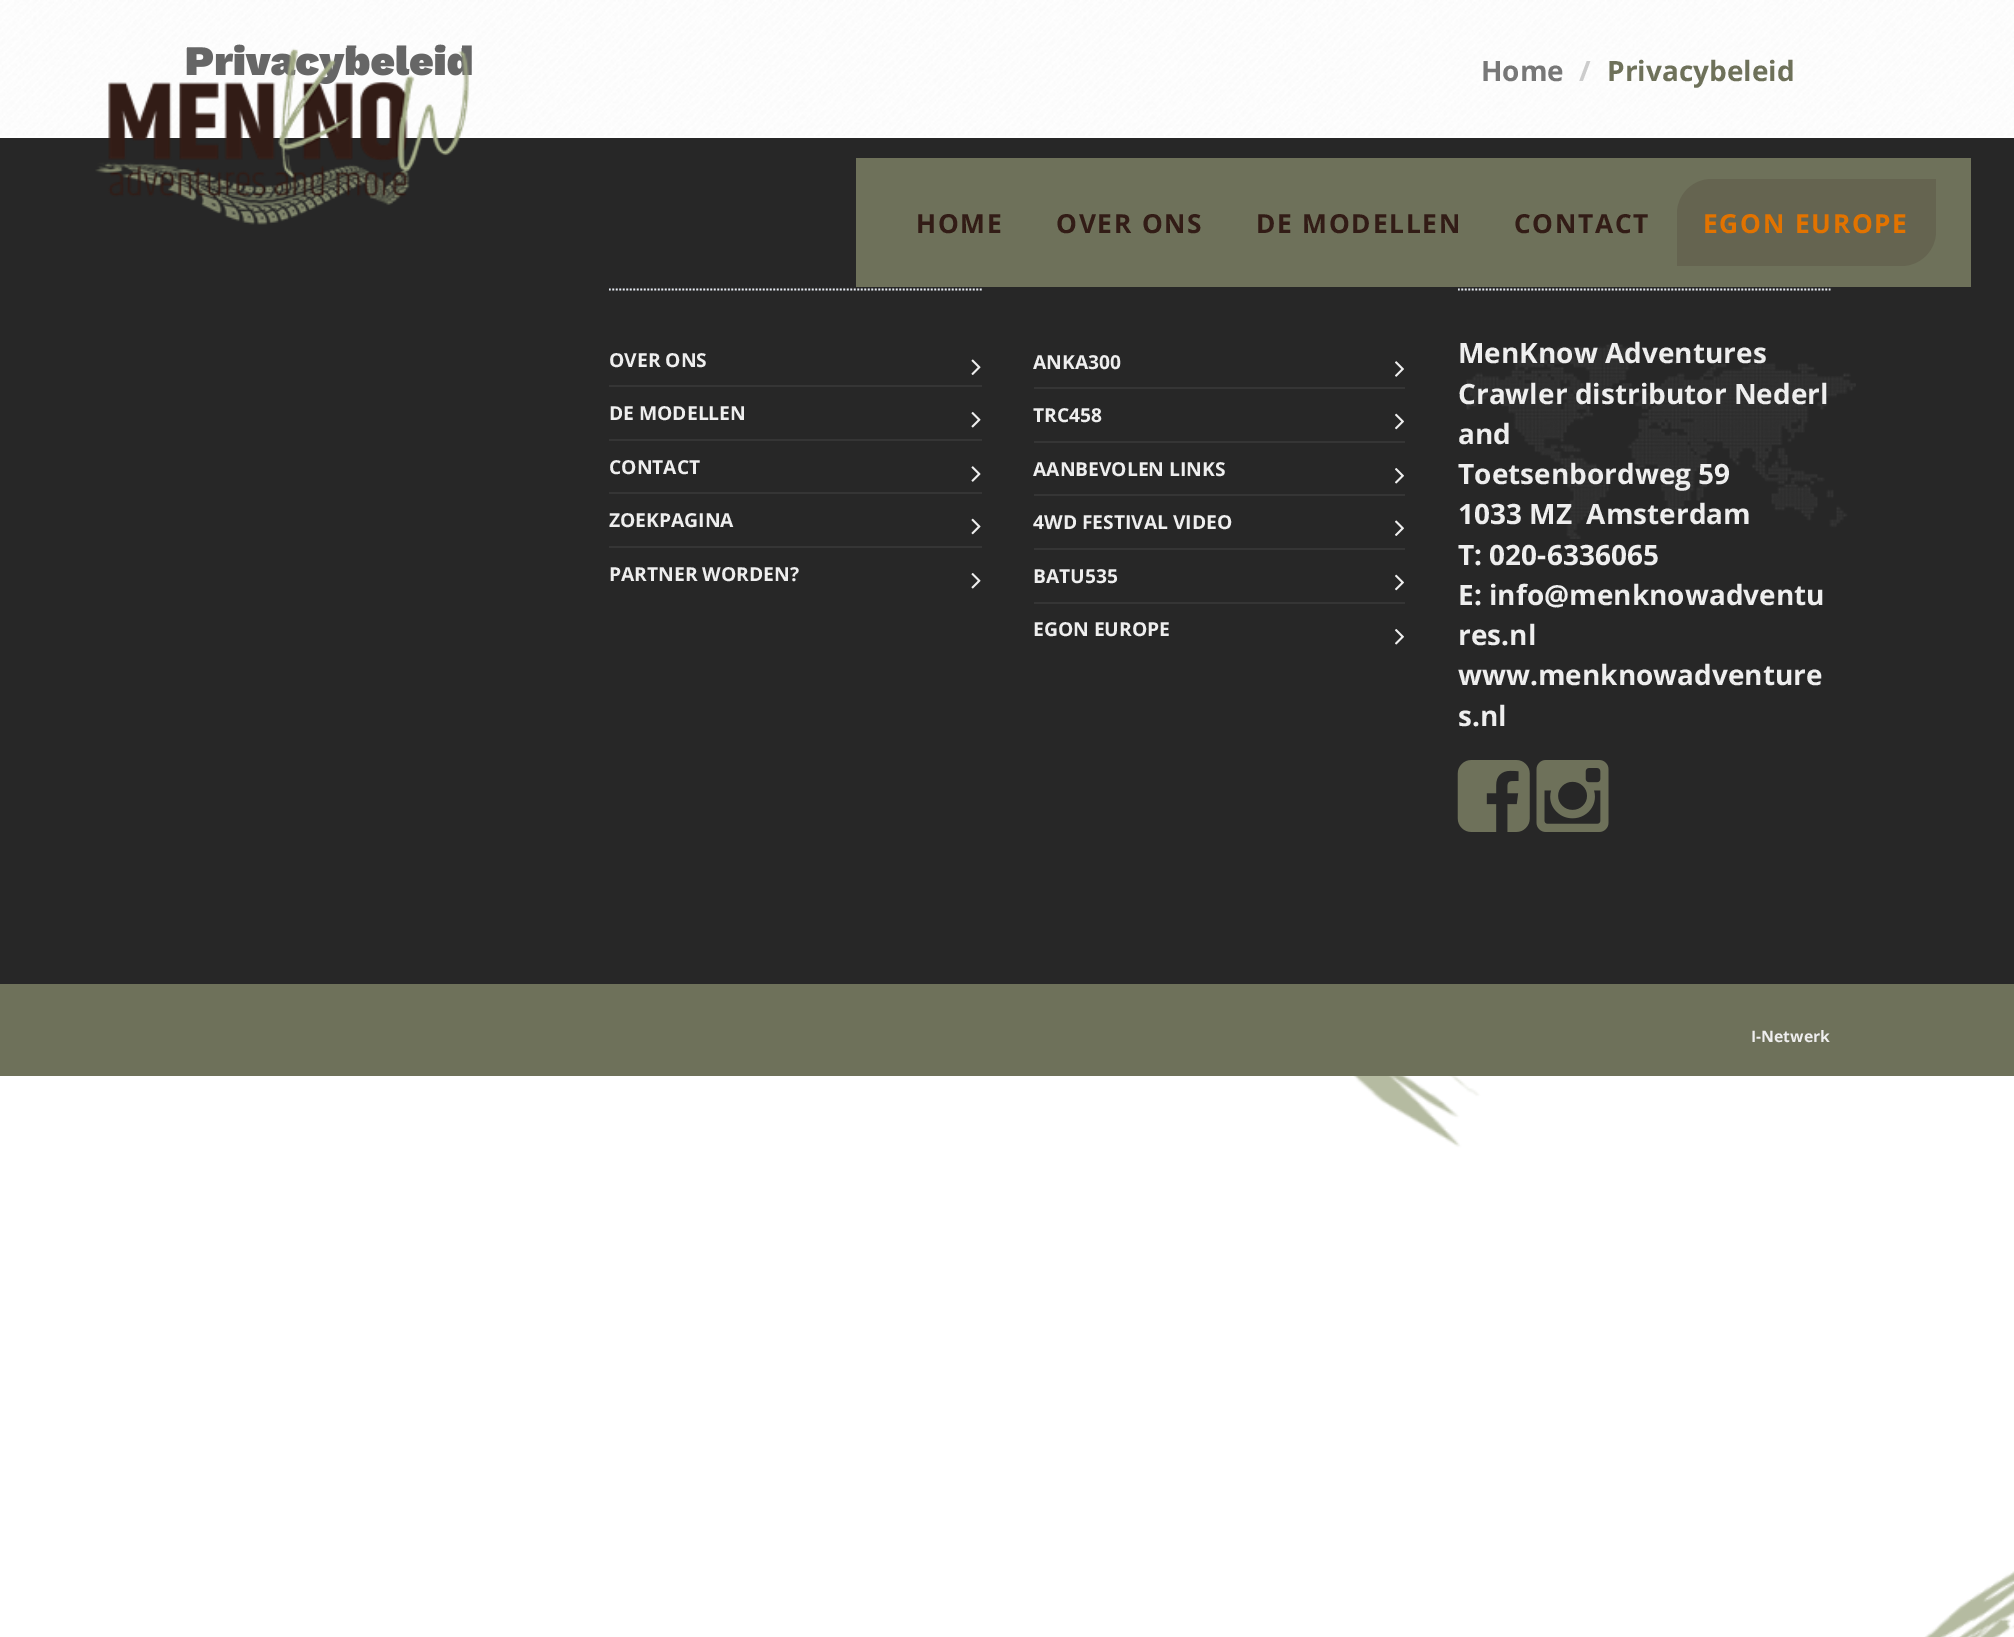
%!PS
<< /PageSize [2014 1637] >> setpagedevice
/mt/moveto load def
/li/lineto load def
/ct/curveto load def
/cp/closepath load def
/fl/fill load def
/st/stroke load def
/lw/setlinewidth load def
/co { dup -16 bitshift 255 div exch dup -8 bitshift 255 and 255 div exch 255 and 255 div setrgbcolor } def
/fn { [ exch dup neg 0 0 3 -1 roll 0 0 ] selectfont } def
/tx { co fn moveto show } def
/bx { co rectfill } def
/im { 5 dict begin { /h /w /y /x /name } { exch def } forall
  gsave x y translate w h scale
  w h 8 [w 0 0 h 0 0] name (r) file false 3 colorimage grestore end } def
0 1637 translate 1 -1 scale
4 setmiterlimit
0 0 2014 1637 16#FFFFFF bx
(media/1.raw) 1353 1076 661 561 im
(media/2.raw) 0 0 2014 136 im
0 138 2014 846 16#272727 bx
856 158 1115 129 16#6E715A bx
16#656450 co
1712 179 mt 1936 179 li 1936 231 li 1936 250.5 1920.5 266 1901 266 ct 1677 266 li 1677 214 li 1677 194.5 1692.5 179 1712 179 ct cp fl
16#E4E9F0 co
1.8 lw
[1.75 1.75] 0 setdash
609 289.5 mt 982 289.5 li st
(media/4.raw) 971 359 10 16 im
609 385 373 2 16#353535 bx
(media/5.raw) 971 412 10 16 im
609 439 373 2 16#353535 bx
(media/6.raw) 971 466 10 16 im
609 492 373 2 16#353535 bx
(media/7.raw) 971 518 10 17 im
609 546 373 2 16#353535 bx
(media/5.raw) 971 573 10 16 im
(media/8.raw) 1395 361 9 16 im
1034 387 371 2 16#353535 bx
(media/9.raw) 1395 413 9 17 im
1034 441 371 2 16#353535 bx
(media/10.raw) 1395 468 9 16 im
1034 494 371 2 16#353535 bx
(media/11.raw) 1395 520 9 16 im
1034 548 371 2 16#353535 bx
(media/9.raw) 1395 574 9 17 im
1034 602 371 2 16#353535 bx
(media/10.raw) 1395 629 9 16 im
(media/12.raw) 1466 344 390 195 im
16#E4E9F0 co
1458 289.5 mt 1830.5 289.5 li st
(media/13.raw) 1457 760 73 72 im
(media/14.raw) 1536 760 73 72 im
0 984 2014 92 16#6E715A bx
(Privacybeleid) 185 75 /WorkSans-Black 42 16#666666 tx
(Home) 1481 81 /OpenSans-Bold 28 16#777777 tx
(/) 1579 81 /OpenSans-Bold 28 16#CCCCCC tx
(Privacybeleid) 1607 81 /OpenSans-Bold 28 16#6E715A tx
(media/3.raw) 95 48 375 177 im
/OpenSans-Bold 26.25 fn
16#321C16 co
916 233 mt 1.75 0 (HOME) ashow
1056 233 mt 1.75 0 (OVER ONS) ashow
1256 233 mt 1.75 0 (DE MODELLEN) ashow
1514 233 mt 1.75 0 (CONTACT) ashow
16#E27300 co
1703 233 mt 1.75 0 (EGON EUROPE) ashow
(OVER ONS) 609 367 /OpenSans-Bold 19.25 16#EEEEEE tx
(DE MODELLEN) 609 420 /OpenSans-Bold 19.25 16#EEEEEE tx
(CONTACT) 609 474 /OpenSans-Bold 19.25 16#EEEEEE tx
(ZOEKPAGINA) 609 527 /OpenSans-Bold 19.25 16#EEEEEE tx
(PARTNER WORDEN?) 609 581 /OpenSans-Bold 19.25 16#EEEEEE tx
(ANKA300) 1033 369 /OpenSans-Bold 19.25 16#EEEEEE tx
(TRC458) 1033 422 /OpenSans-Bold 19.25 16#EEEEEE tx
(AANBEVOLEN LINKS) 1033 476 /OpenSans-Bold 19.25 16#EEEEEE tx
(4WD FESTIVAL VIDEO) 1033 529 /OpenSans-Bold 19.25 16#EEEEEE tx
(BATU535) 1033 583 /OpenSans-Bold 19.25 16#EEEEEE tx
(EGON EUROPE) 1033 636 /OpenSans-Bold 19.25 16#EEEEEE tx
(MenKnow Adventures) 1458 363 /OpenSans-Bold 28 16#EEEEEE tx
(Crawler distributor Nederl) 1458 404 /OpenSans-Bold 28 16#EEEEEE tx
(and) 1458 444 /OpenSans-Bold 28 16#EEEEEE tx
(Toetsenbordweg 59) 1458 484 /OpenSans-Bold 28 16#EEEEEE tx
(1033 MZ  Amsterdam) 1458 524 /OpenSans-Bold 28 16#EEEEEE tx
(T: 020-6336065) 1458 565 /OpenSans-Bold 28 16#EEEEEE tx
(E: info@menknowadventu) 1458 605 /OpenSans-Bold 28 16#EEEEEE tx
(res.nl) 1458 645 /OpenSans-Bold 28 16#EEEEEE tx
(www.menknowadventure) 1458 685 /OpenSans-Bold 28 16#EEEEEE tx
(s.nl) 1458 726 /OpenSans-Bold 28 16#EEEEEE tx
(I-Netwerk) 1751 1042 /OpenSans-Bold 15.75 16#EEEEEE tx
showpage
